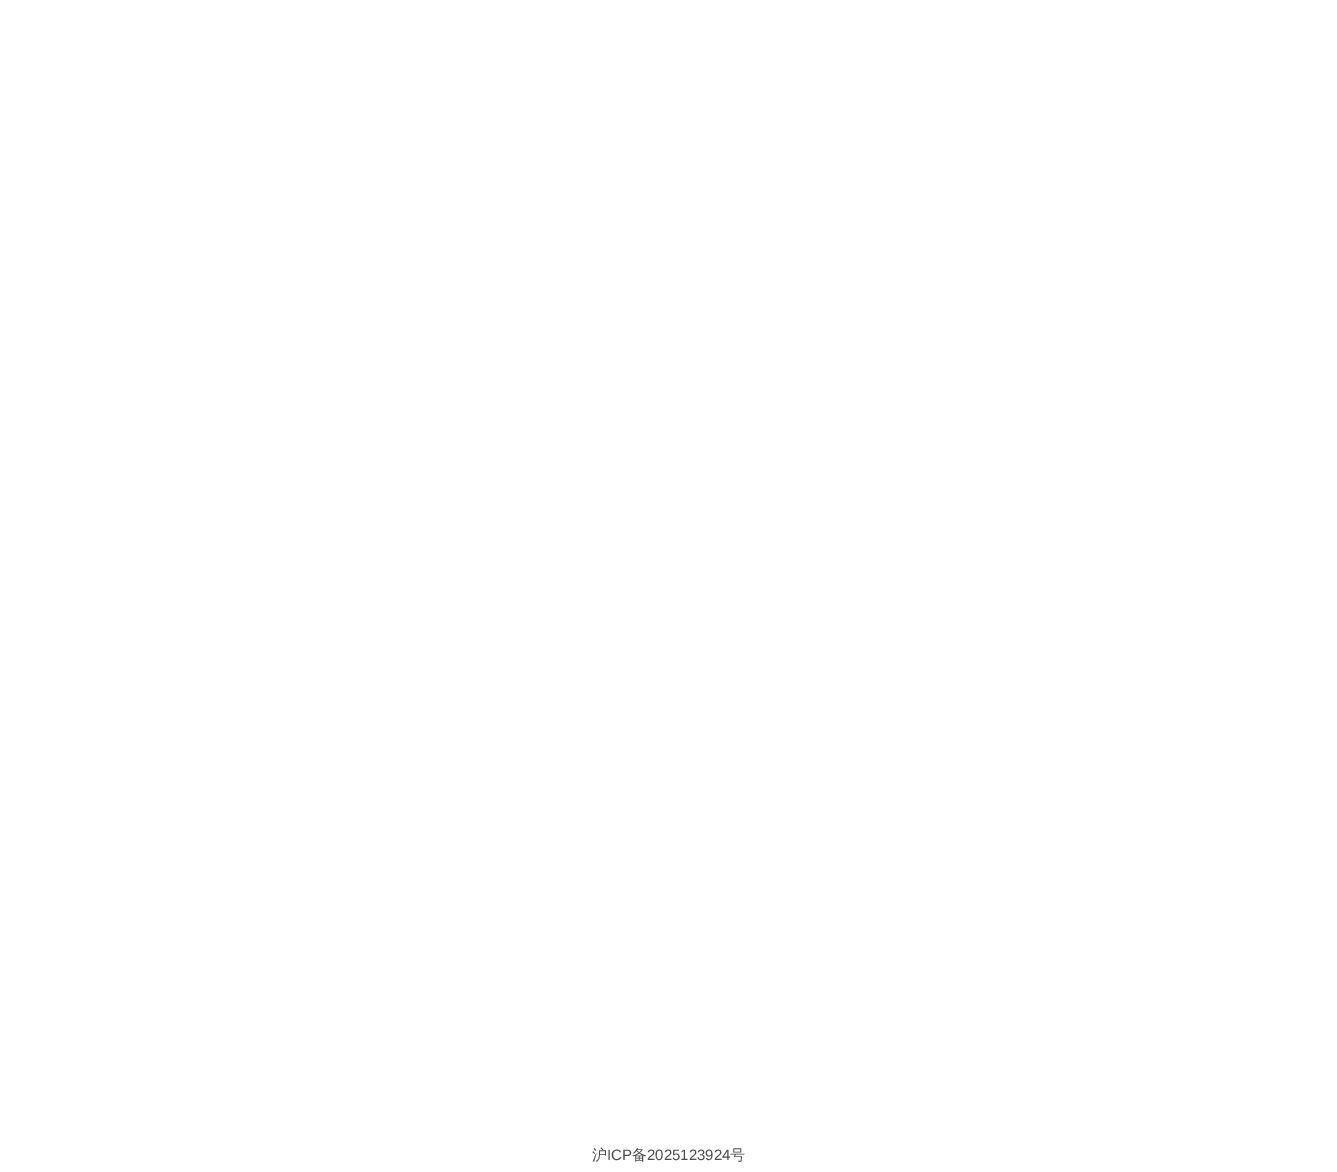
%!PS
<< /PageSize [1337 1172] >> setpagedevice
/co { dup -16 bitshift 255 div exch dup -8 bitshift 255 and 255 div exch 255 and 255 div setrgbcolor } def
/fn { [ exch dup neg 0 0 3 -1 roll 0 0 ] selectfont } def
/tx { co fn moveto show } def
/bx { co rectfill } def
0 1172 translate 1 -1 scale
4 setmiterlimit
0 0 1337 1172 16#FFFFFF bx
(沪) 592 1160 /WenQuanYiZenHei-Medium 15 16#4D4D4D tx
(ICP) 607 1160 /LiberationSans-Regular 15 16#4D4D4D tx
(备) 632 1160 /WenQuanYiZenHei-Medium 15 16#4D4D4D tx
(2025123924) 647 1160 /LiberationSans-Regular 15 16#4D4D4D tx
(号) 730 1160 /WenQuanYiZenHei-Medium 15 16#4D4D4D tx
showpage
